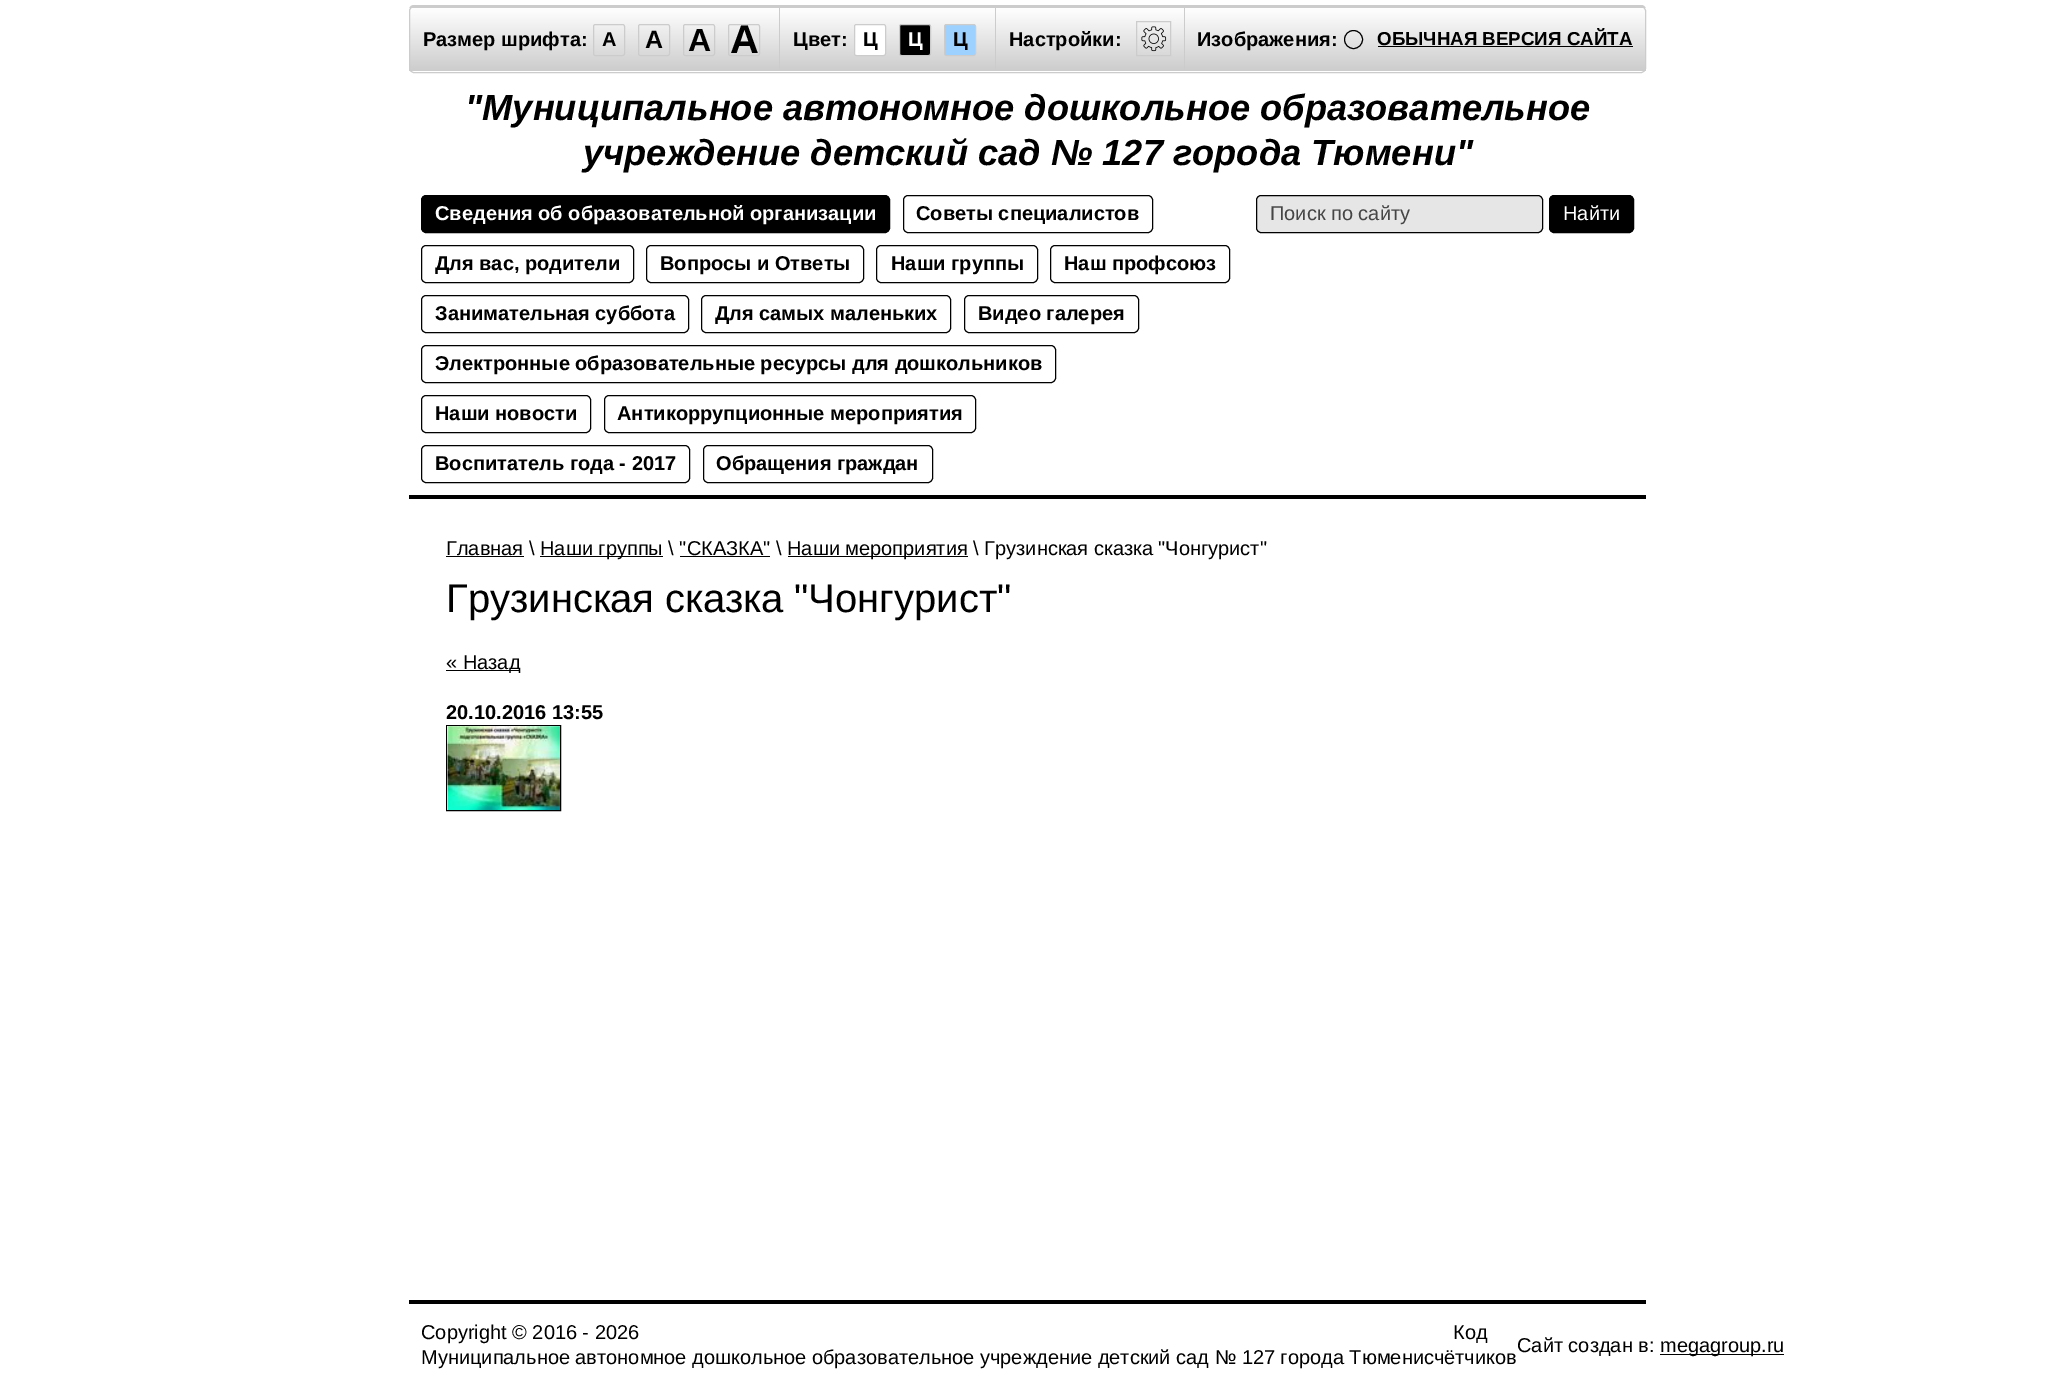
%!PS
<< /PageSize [2055 1387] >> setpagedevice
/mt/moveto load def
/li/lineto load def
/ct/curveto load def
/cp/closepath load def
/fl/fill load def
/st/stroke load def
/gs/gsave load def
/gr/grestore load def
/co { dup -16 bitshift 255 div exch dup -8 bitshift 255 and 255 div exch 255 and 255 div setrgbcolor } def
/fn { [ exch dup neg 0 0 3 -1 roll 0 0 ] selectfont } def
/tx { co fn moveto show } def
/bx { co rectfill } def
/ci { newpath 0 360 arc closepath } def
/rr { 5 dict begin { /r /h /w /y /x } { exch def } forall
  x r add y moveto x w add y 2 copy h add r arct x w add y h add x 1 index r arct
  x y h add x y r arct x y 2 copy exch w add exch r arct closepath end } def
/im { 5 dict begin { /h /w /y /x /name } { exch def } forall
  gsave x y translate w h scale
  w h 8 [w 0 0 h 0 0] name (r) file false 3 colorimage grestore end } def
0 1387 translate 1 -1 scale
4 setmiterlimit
0 0 2055 1387 16#FFFFFF bx
409 495 1237 4 16#000000 bx
16#CCCCCC co
414 5 mt 411 5 409 7 409 10 ct 410 8 412 6 414 6 ct 1641 6 li 1643 6 1645 8 1646 10 ct 1646 7 1644 5 1641 5 ct cp fl
gs
409 6 1237 67 5 rr clip newpath
gs 409 6 mt 1646 6 li 1646 8 li 409 8 li cp clip newpath
<< /ShadingType 2 /ColorSpace /DeviceRGB /Coords [1028 -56 1028 7.5] /Extend [true true] /Function << /FunctionType 2 /Domain [0 1] /C0 [1 1 1] /C1 [.8 .8 .8] /N 1 >> >> shfill gr
gs 409 8 mt 1646 8 li 1646 71 li 409 71 li cp clip newpath
<< /ShadingType 2 /ColorSpace /DeviceRGB /Coords [1028 7.5 1028 71] /Extend [true true] /Function << /FunctionType 2 /Domain [0 1] /C0 [1 1 1] /C1 [.8 .8 .8] /N 1 >> >> shfill gr
gr
409.5 6.5 1236 66 4.5 rr st
779 8 1 63 16#CCCCCC bx
593.5 24.5 31 31 2 rr st
638.5 24.5 31 31 2 rr st
683.5 24.5 31 31 2 rr st
728.5 24.5 31 31 2 rr st
995 8 1 63 16#CCCCCC bx
16#FFFFFF co
854.5 24.5 31 31 2 rr gs fl gr
16#CCCCCC co
st
16#000000 co
899.5 24.5 31 31 2 rr gs fl gr
16#CCCCCC co
st
16#9DD1FF co
944.5 24.5 31 31 2 rr gs fl gr
16#CCCCCC co
st
1136.5 21.5 34 34 rectstroke
(media/1.raw) 1141 26 26 26 im
1184 8 1 63 16#CCCCCC bx
16#000000 co
1353.5 39.5 9 ci st
1378 46 255 1 16#000000 bx
421.5 195.5 468 37 4.5 rr gs fl gr
st
903.5 195.5 249 37 4.5 rr st
421.5 245.5 212 37 4.5 rr st
646.5 245.5 217 37 4.5 rr st
876.5 245.5 161 37 4.5 rr st
1050.5 245.5 179 37 4.5 rr st
421.5 295.5 267 37 4.5 rr st
701.5 295.5 249 37 4.5 rr st
964.5 295.5 174 37 4.5 rr st
421.5 345.5 634 37 4.5 rr st
421.5 395.5 169 37 4.5 rr st
604.5 395.5 371 37 4.5 rr st
421.5 445.5 268 37 4.5 rr st
703.5 445.5 229 37 4.5 rr st
16#E6E6E6 co
1256.5 195.5 286 37 4.5 rr gs fl gr
16#000000 co
st
1549.5 195.5 84 37 4.5 rr gs fl gr
st
446 556 78 1 16#000000 bx
540 556 123 1 16#000000 bx
788 556 180 1 16#000000 bx
680 556 90 1 16#000000 bx
446 670 74 1 16#000000 bx
446.5 725.5 114 85 rectstroke
(media/2.raw) 447 726 113 84 im
409 1300 1237 4 16#000000 bx
1660 1354 124 1 16#000000 bx
(Размер шрифта:) 423 46 /LiberationSans-Bold 20 16#000000 tx
(A) 602 46 /LiberationSans-Bold 20 16#000000 tx
(A) 645 48 /LiberationSans-Bold 25 16#000000 tx
(A) 688 51 /LiberationSans-Bold 32 16#000000 tx
(A) 730 53 /LiberationSans-Bold 40 16#000000 tx
(Цвет:) 793 46 /LiberationSans-Bold 20 16#000000 tx
(Ц) 863 46 /LiberationSans-Bold 20 16#000000 tx
(Ц) 908 46 /LiberationSans-Bold 20 16#FFFFFF tx
(Ц) 953 46 /LiberationSans-Bold 20 16#000000 tx
(Настройки:) 1009 46 /LiberationSans-Bold 20 16#000000 tx
(Изображения:) 1197 46 /LiberationSans-Bold 20 16#000000 tx
(ОБЫЧНАЯ ВЕРСИЯ САЙТА) 1377 45 /LiberationSans-Bold 18.75 16#000000 tx
("Муниципальное автономное дошкольное образовательное) 465 120 /LiberationSans-BoldItalic 36.25 16#000000 tx
(учреждение детский сад № 127 города Тюмени") 583 165 /LiberationSans-BoldItalic 36.25 16#000000 tx
(Сведения об образовательной организации) 435 220 /LiberationSans-Bold 20 16#FFFFFF tx
(Советы специалистов) 916 220 /LiberationSans-Bold 20 16#000000 tx
(Для вас, родители) 435 270 /LiberationSans-Bold 20 16#000000 tx
(Вопросы и Ответы) 660 270 /LiberationSans-Bold 20 16#000000 tx
(Наши группы) 891 270 /LiberationSans-Bold 20 16#000000 tx
(Наш профсоюз) 1064 270 /LiberationSans-Bold 20 16#000000 tx
(Занимательная суббота) 435 320 /LiberationSans-Bold 20 16#000000 tx
(Для самых маленьких) 715 320 /LiberationSans-Bold 20 16#000000 tx
(Видео галерея) 978 320 /LiberationSans-Bold 20 16#000000 tx
(Электронные образовательные ресурсы для дошкольников) 435 370 /LiberationSans-Bold 20 16#000000 tx
(Наши новости) 435 420 /LiberationSans-Bold 20 16#000000 tx
(Антикоррупционные мероприятия) 617 420 /LiberationSans-Bold 20 16#000000 tx
(Воспитатель года - 2017) 435 470 /LiberationSans-Bold 20 16#000000 tx
(Обращения граждан) 716 470 /LiberationSans-Bold 20 16#000000 tx
(Поиск по сайту) 1270 220 /LiberationSans-Regular 20 16#454545 tx
(Найти) 1563 220 /LiberationSans-Regular 20 16#FFFFFF tx
(Главная \\) 446 555 /LiberationSans-Regular 20 16#000000 tx
(Наши группы \\ "СКАЗКА" \\) 540 555 /LiberationSans-Regular 20 16#000000 tx
(Наши мероприятия \\ Грузинская сказка "Чонгурист") 787 555 /LiberationSans-Regular 20 16#000000 tx
(Грузинская сказка "Чонгурист") 446 612 /LiberationSans-Regular 40 16#000000 tx
(« Назад) 446 669 /LiberationSans-Regular 20 16#000000 tx
(20.10.2016 13:55) 446 719 /LiberationSans-Bold 20 16#000000 tx
(Copyright © 2016 - 2026) 421 1339 /LiberationSans-Regular 20 16#000000 tx
(Муниципальное автономное дошкольное образовательное учреждение детский сад № 127 города Тюменисчётчиков) 421 1364 /LiberationSans-Regular 20 16#000000 tx
(Код) 1453 1339 /LiberationSans-Regular 20 16#000000 tx
(Сайт создан в:) 1517 1352 /LiberationSans-Regular 20 16#000000 tx
(megagroup.ru) 1660 1352 /LiberationSans-Regular 20 16#000000 tx
showpage
